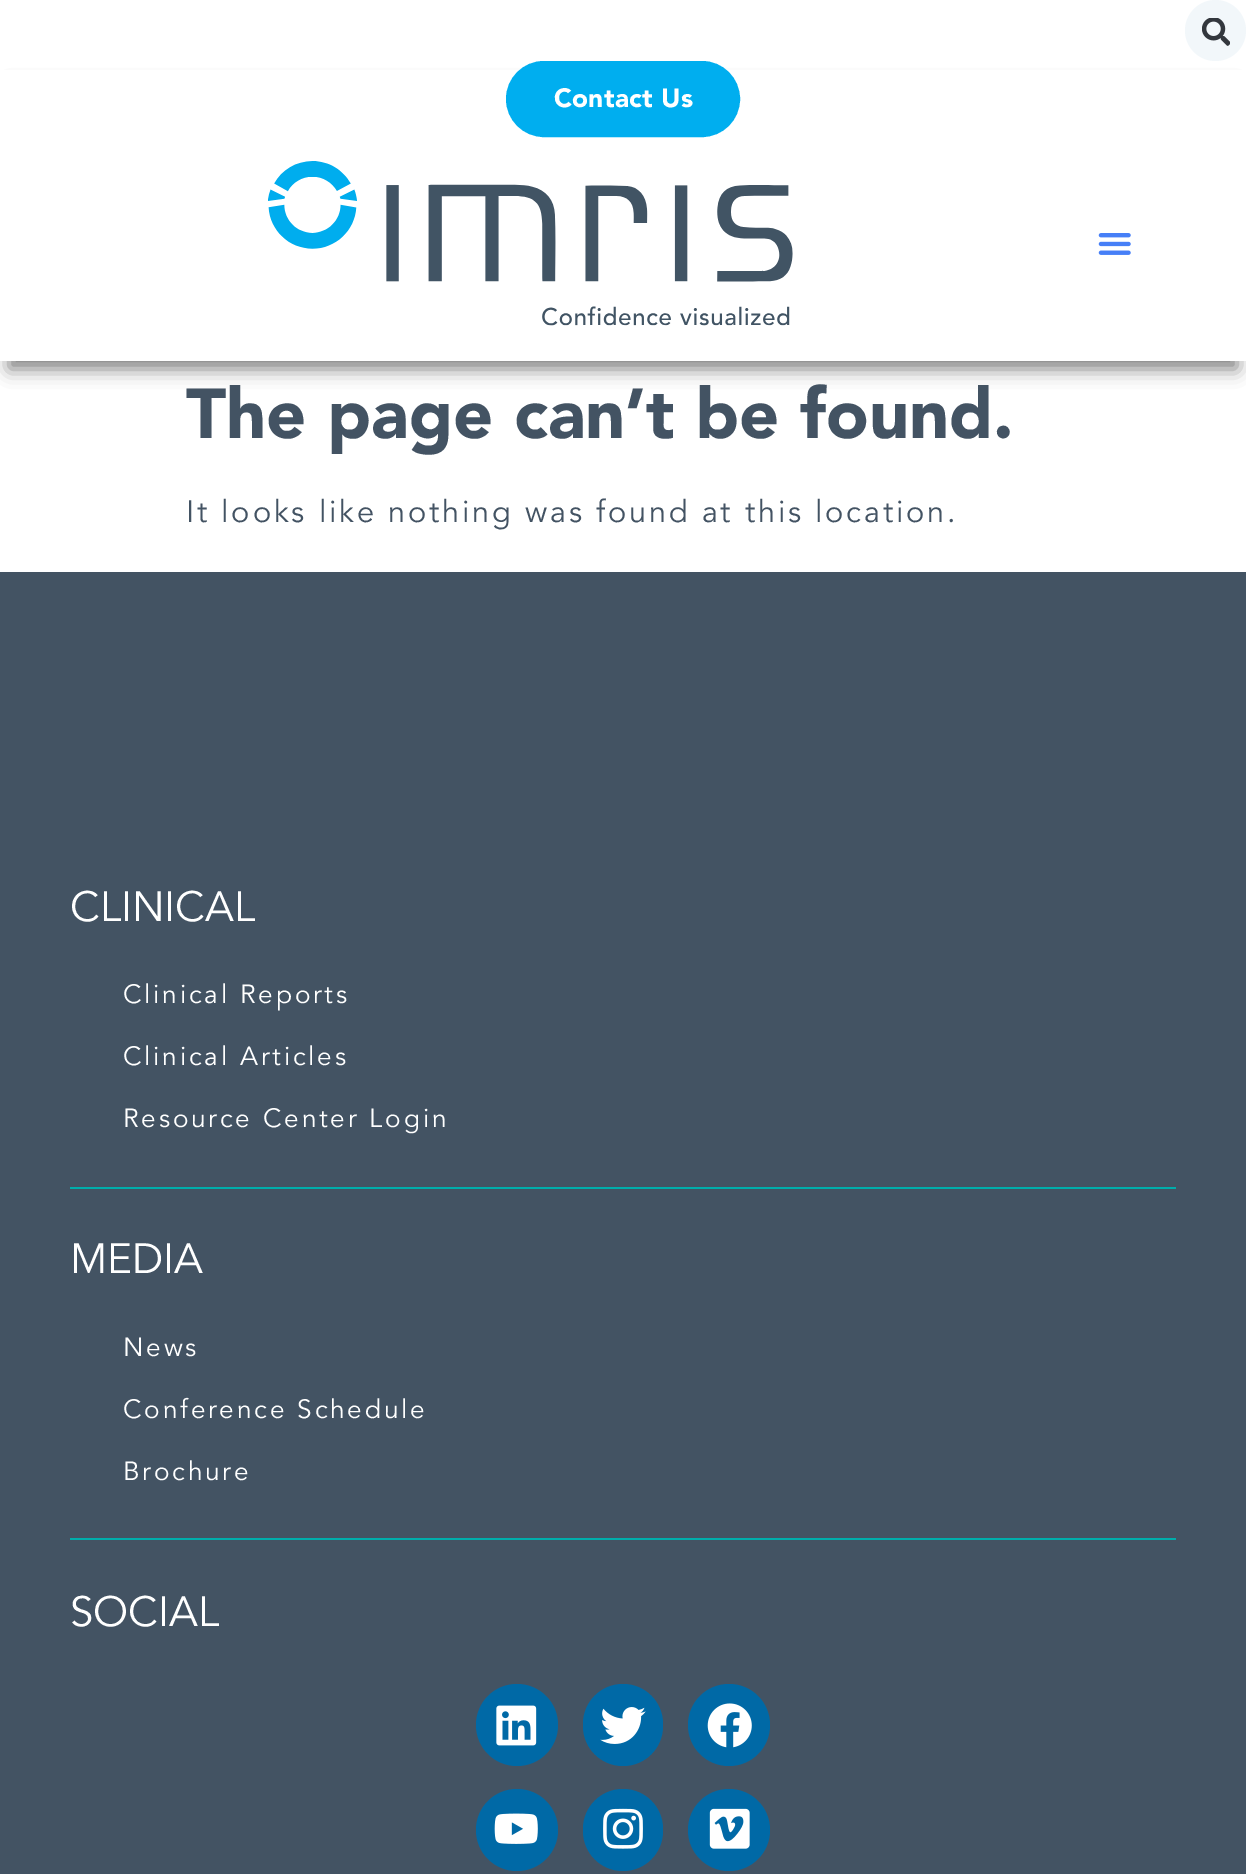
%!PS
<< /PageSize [1246 1874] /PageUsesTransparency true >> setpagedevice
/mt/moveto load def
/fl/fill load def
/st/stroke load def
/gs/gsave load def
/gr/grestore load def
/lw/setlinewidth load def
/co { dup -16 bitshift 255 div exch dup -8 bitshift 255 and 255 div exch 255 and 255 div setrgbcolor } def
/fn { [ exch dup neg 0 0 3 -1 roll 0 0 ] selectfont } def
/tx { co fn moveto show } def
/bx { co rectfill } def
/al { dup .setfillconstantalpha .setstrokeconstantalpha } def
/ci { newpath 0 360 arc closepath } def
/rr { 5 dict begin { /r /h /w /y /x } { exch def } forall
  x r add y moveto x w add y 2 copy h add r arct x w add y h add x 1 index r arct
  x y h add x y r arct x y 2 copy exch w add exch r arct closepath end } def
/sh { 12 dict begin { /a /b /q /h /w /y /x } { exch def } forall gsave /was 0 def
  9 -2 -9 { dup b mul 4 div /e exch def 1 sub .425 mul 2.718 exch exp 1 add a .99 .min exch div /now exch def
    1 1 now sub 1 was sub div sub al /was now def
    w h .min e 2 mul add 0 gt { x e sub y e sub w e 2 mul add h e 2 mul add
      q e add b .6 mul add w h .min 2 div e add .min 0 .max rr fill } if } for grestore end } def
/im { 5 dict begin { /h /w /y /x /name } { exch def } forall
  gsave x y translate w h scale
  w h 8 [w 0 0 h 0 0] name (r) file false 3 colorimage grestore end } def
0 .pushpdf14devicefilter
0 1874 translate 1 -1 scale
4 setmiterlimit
0 0 1246 1874 16#FFFFFF bx
16#F2F7FA co
1215.5 30.5 30.5 ci fl
(media/1.raw) 1202 18 28 28 im
16#000000 co
9 88 1228 281 0 9 .5 sh
0 70 1246 291 16#FFFFFF bx
16#00AEEF co
508 63 230 72 36 rr gs fl gr
4 lw
st
(media/2.raw) 268 161 525 165 im
(media/3.raw) 1098 233 33 22 im
0 572 1246 1302 16#435363 bx
70 1187 1106 2 16#00ADAB bx
70 1538 1106 2 16#00ADAB bx
16#0069A6 co
517 1725 41 ci fl
(media/4.raw) 496 1705 41 41 im
583 1684 80 82 40 rr fl
(media/5.raw) 600 1707 46 37 im
729 1725 41 ci fl
(media/6.raw) 707 1703 45 45 im
517 1830 41 ci fl
(media/7.raw) 494 1813 44 31 im
583 1789 80 82 40 rr fl
(media/8.raw) 603 1808 40 41 im
729 1830 41 ci fl
(media/9.raw) 709 1808 41 41 im
/Avenir-Black 26.25 fn
16#FFFFFF co
554 107 mt .25 0 (Contact Us) ashow
(The page can’t be found.) 186 438 /Avenir-Black 70 16#435363 tx
/Avenir-Regular 30.8 fn
186 522 mt 2.8 0 (It looks like nothing was found at this location.) ashow
(CLINICAL) 70 921 /Avenir-Regular 42 16#FFFFFF tx
/Avenir-Regular 26.25 fn
123 1003 mt 2.8 0 (Clinical Reports) ashow
123 1065 mt 2.8 0 (Clinical Articles) ashow
123 1127 mt 2.8 0 (Resource Center Login) ashow
(MEDIA) 70 1273 /Avenir-Regular 42 16#FFFFFF tx
/Avenir-Regular 26.25 fn
123 1356 mt 2.8 0 (News) ashow
123 1418 mt 2.8 0 (Conference Schedule) ashow
123 1480 mt 2.8 0 (Brochure) ashow
(SOCIAL) 70 1626 /Avenir-Regular 42 16#FFFFFF tx
.poppdf14devicefilter showpage
